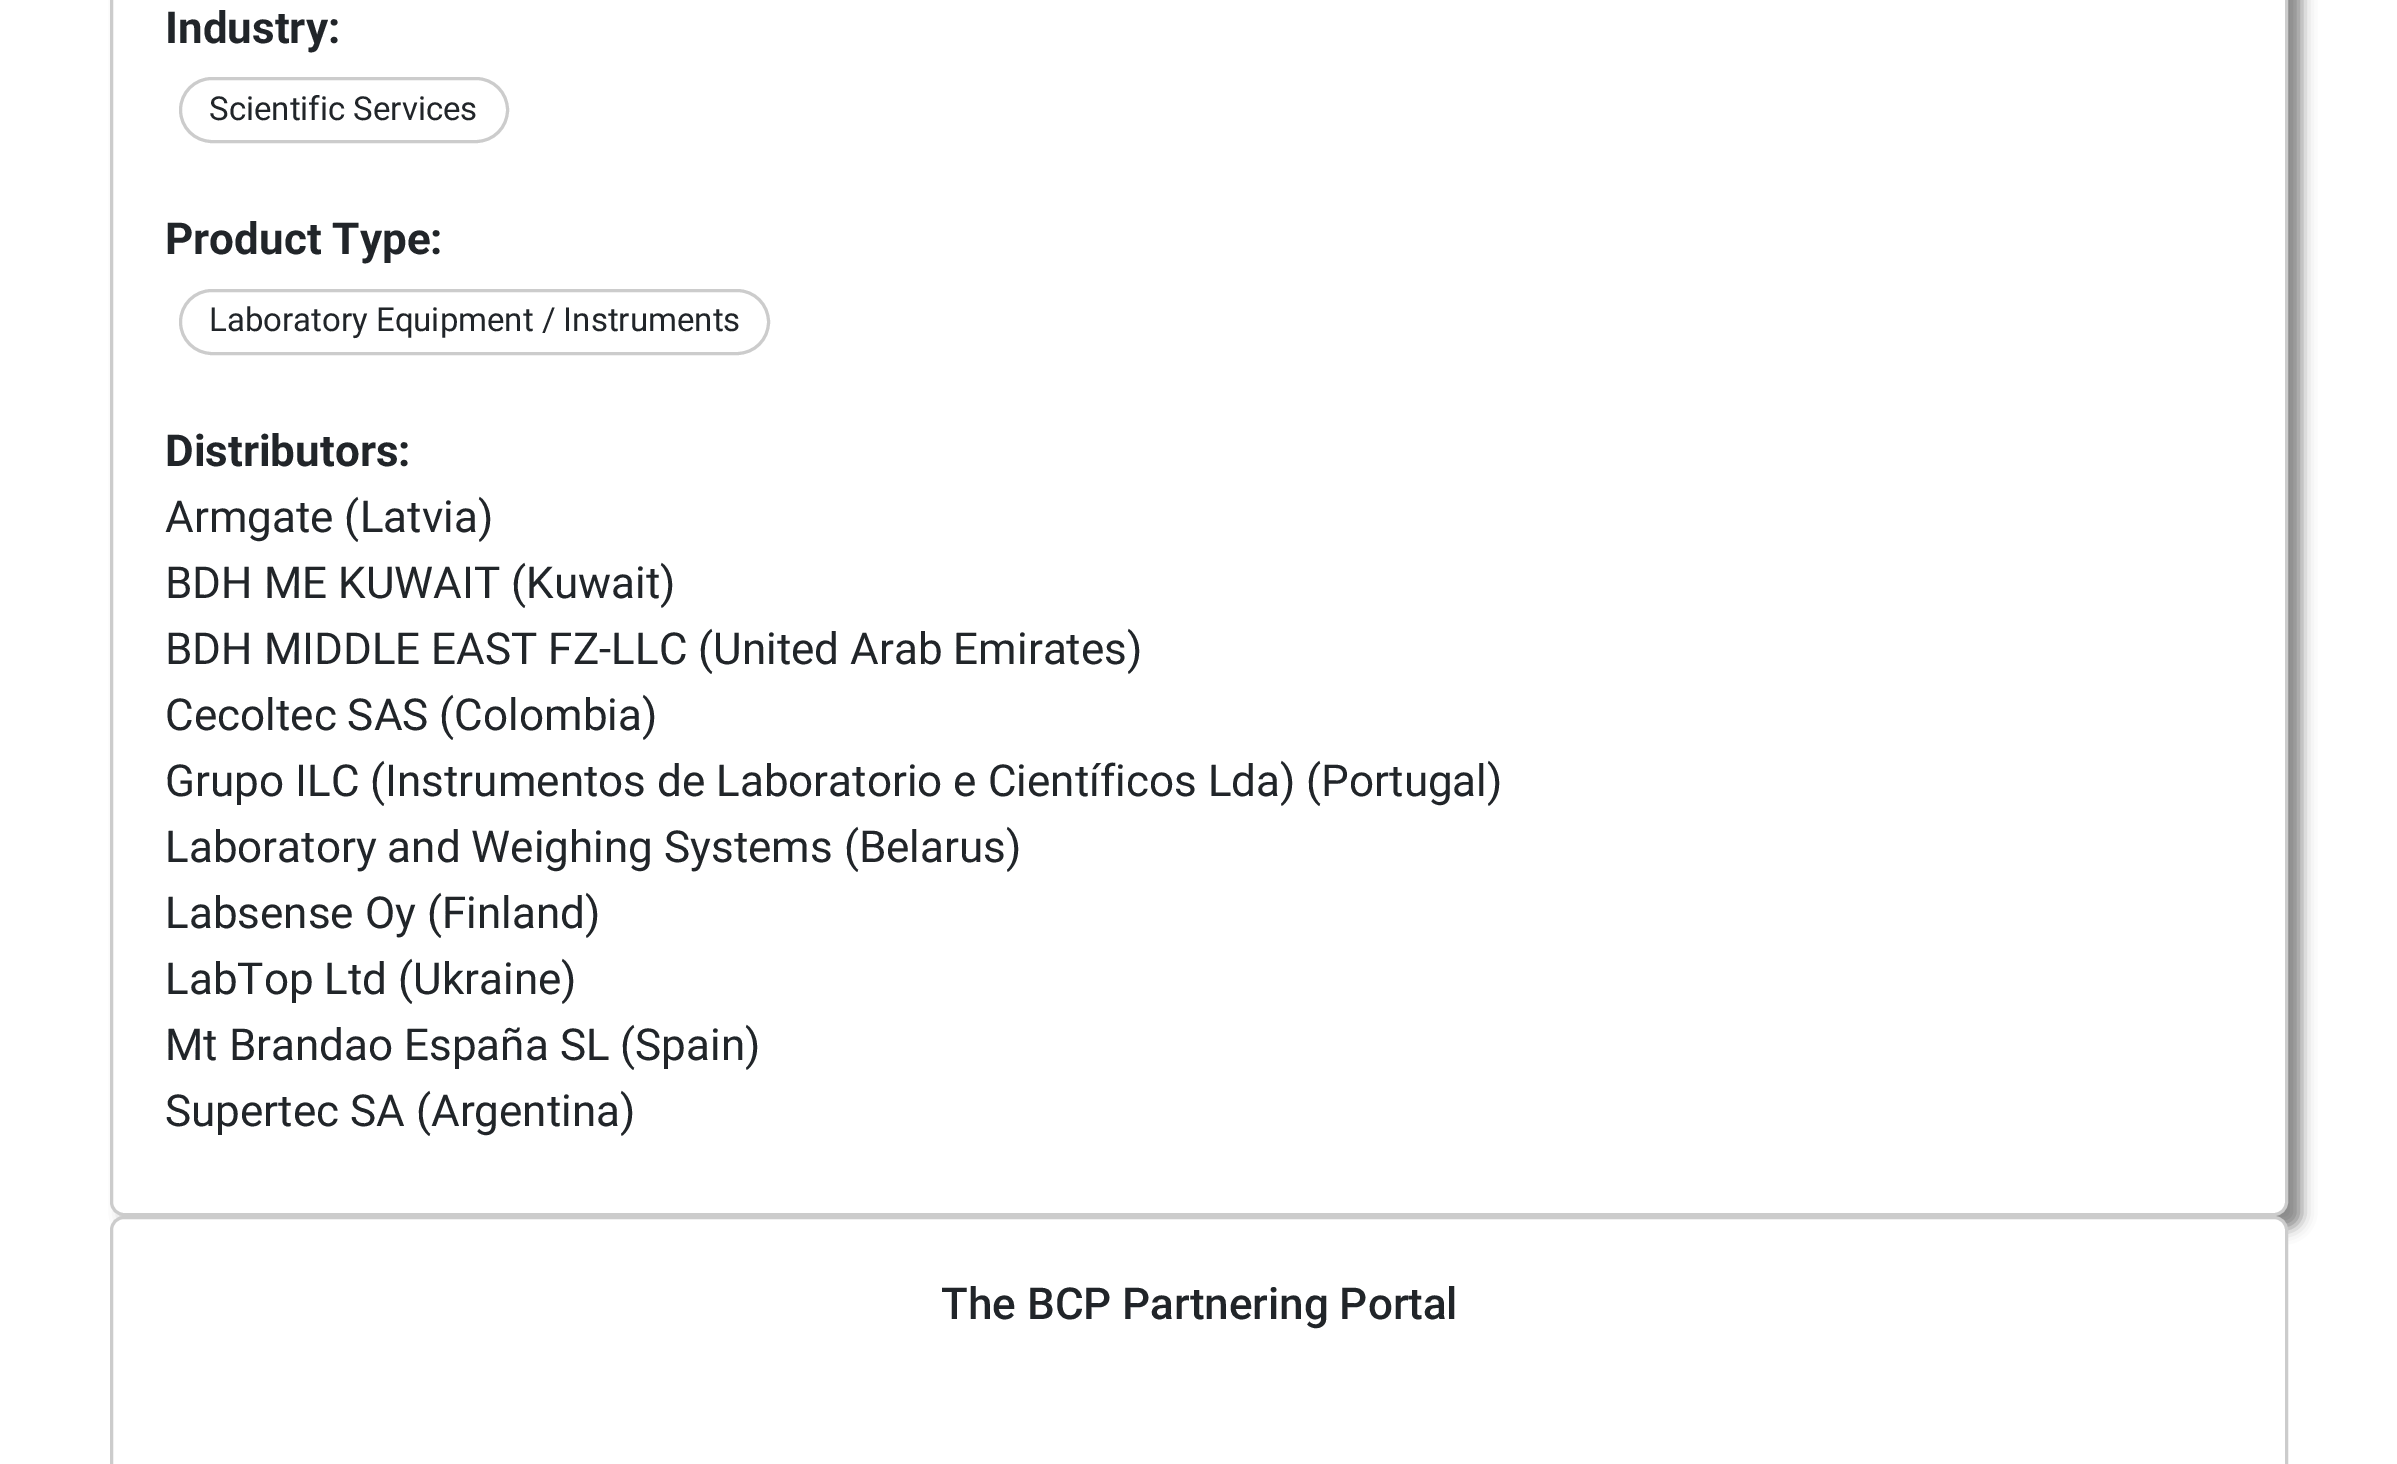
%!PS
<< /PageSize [2397 1464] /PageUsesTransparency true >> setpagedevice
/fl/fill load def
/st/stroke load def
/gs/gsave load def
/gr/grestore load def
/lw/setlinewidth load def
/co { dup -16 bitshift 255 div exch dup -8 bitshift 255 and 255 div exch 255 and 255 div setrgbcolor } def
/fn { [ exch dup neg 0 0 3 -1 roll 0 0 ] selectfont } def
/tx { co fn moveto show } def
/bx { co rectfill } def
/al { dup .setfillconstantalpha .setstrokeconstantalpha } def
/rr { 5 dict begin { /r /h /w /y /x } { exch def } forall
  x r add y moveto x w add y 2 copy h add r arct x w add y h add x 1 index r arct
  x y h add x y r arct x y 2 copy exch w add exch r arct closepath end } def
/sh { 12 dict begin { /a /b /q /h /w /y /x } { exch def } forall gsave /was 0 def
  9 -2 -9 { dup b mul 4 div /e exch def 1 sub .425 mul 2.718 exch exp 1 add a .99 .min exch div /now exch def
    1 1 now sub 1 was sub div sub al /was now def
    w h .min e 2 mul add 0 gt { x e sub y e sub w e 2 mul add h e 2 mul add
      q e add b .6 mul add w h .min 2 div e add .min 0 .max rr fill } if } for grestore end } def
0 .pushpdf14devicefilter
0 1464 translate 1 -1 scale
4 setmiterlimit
0 0 2397 1464 16#FFFFFF bx
16#888888 co
124 -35 2178 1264 14 7 1 sh
16#FFFFFF co
111.5 -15.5 2175 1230 12.5 rr gs fl gr
16#CCCCCC co
3 lw
st
180.5 78.5 327 63 31.5 rr st
180.5 290.5 588 63 31.5 rr st
16#FFFFFF co
111.5 1217.5 2175 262 12.5 rr gs fl gr
16#CCCCCC co
st
(Industry:) 165 43 /Roboto-Bold 44 16#212529 tx
(Scientific Services) 209 120 /Roboto-Regular 33 16#212529 tx
(Product Type:) 165 254 /Roboto-Bold 44 16#212529 tx
(Laboratory Equipment / Instruments) 209 331 /Roboto-Regular 33 16#212529 tx
(Distributors:) 165 466 /Roboto-Bold 44 16#212529 tx
(Armgate \(Latvia\)) 165 532 /Roboto-Regular 44 16#212529 tx
(BDH ME KUWAIT \(Kuwait\)) 165 598 /Roboto-Regular 44 16#212529 tx
(BDH MIDDLE EAST FZ-LLC \(United Arab Emirates\)) 165 664 /Roboto-Regular 44 16#212529 tx
(Cecoltec SAS \(Colombia\)) 165 730 /Roboto-Regular 44 16#212529 tx
(Grupo ILC \(Instrumentos de Laboratorio e Científicos Lda\) \(Portugal\)) 165 796 /Roboto-Regular 44 16#212529 tx
(Laboratory and Weighing Systems \(Belarus\)) 165 862 /Roboto-Regular 44 16#212529 tx
(Labsense Oy \(Finland\)) 165 928 /Roboto-Regular 44 16#212529 tx
(LabTop Ltd \(Ukraine\)) 165 994 /Roboto-Regular 44 16#212529 tx
(Mt Brandao España SL \(Spain\)) 165 1060 /Roboto-Regular 44 16#212529 tx
(Supertec SA \(Argentina\)) 165 1126 /Roboto-Regular 44 16#212529 tx
(The BCP Partnering Portal) 941 1319 /Roboto-Medium 44 16#212529 tx
.poppdf14devicefilter showpage
